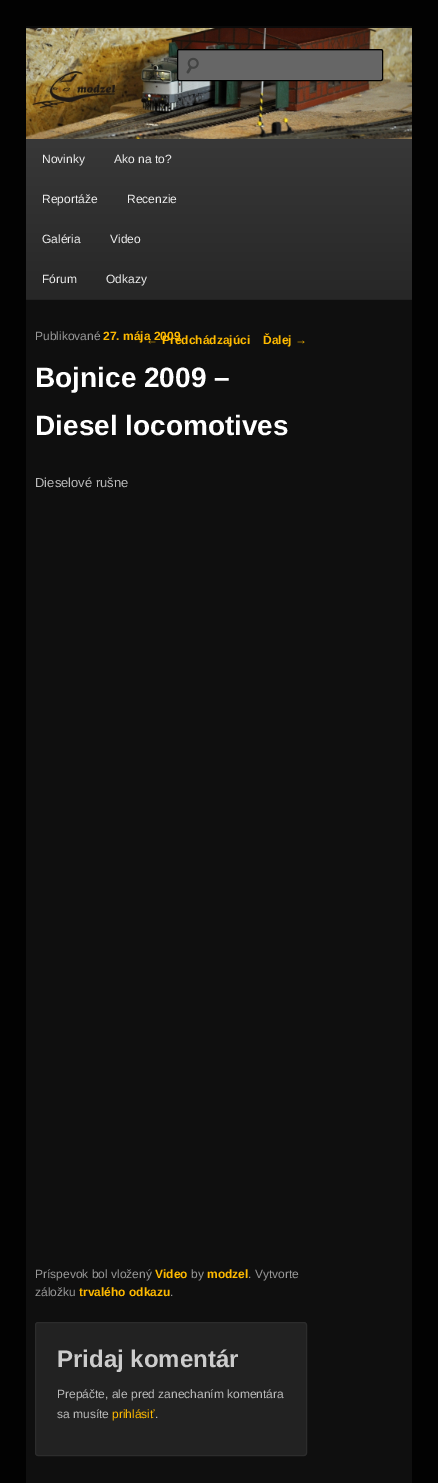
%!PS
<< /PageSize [438 1483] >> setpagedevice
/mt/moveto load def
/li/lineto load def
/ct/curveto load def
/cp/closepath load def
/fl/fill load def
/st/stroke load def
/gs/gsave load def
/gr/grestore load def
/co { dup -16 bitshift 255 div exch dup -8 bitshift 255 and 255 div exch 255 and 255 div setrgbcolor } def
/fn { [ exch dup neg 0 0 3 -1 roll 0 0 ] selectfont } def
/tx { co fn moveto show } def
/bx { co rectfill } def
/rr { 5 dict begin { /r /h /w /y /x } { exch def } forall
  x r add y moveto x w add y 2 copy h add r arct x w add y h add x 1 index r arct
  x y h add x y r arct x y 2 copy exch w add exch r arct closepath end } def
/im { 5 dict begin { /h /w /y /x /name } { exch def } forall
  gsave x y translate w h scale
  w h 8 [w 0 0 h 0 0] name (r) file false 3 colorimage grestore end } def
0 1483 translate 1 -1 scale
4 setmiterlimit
0 0 438 1483 16#020202 bx
26 300 386 1183 16#0F0F0F bx
26 26 386 2 16#0A0A0A bx
(media/1.raw) 26 28 386 111 im
16#666666 co
177 49 206 32 2 rr fl
(media/2.raw) 186 57 13 17 im
16#5C5C5C co
179 51 mt 382 51 li 382 52 li 382 50 li 381 50 li 179 50 li 178 50 178 51 178 52 ct 178 51 178 51 179 51 ct cp fl
16#000000 co
177.5 49.5 205 31 1.5 rr st
gs 26 139 mt 412 139 li 412 299 li 26 299 li cp clip newpath
<< /ShadingType 2 /ColorSpace /DeviceRGB /Coords [219 139 219 299] /Extend [true true] /Function << /FunctionType 2 /Domain [0 1] /C0 [.22 .22 .22] /C1 [.153 .153 .153] /N 1 >> >> shfill gr
26 299 386 1 16#222222 bx
35.5 1322.5 271 133 2.5 rr gs fl gr
16#2C2C2C co
st
(Novinky) 42 163 /LiberationSans-Regular 12 16#EEEEEE tx
(Ako na to?) 114 163 /LiberationSans-Regular 12 16#EEEEEE tx
(Reportáže) 42 203 /LiberationSans-Regular 12 16#EEEEEE tx
(Recenzie) 127 203 /LiberationSans-Regular 12 16#EEEEEE tx
(Galéria) 42 243 /LiberationSans-Regular 12 16#EEEEEE tx
(Video) 110 243 /LiberationSans-Regular 12 16#EEEEEE tx
(Fórum) 42 283 /LiberationSans-Regular 12 16#EEEEEE tx
(Odkazy) 106 283 /LiberationSans-Regular 12 16#EEEEEE tx
(Publikované) 35 340 /LiberationSans-Regular 12 16#999999 tx
(Bojnice 2009 –) 35 387 /LiberationSans-Bold 28 16#FFFFFF tx
(Diesel locomotives) 35 435 /LiberationSans-Bold 28 16#FFFFFF tx
(Dieselové rušne) 35 487 /LiberationSans-Regular 13 16#BBBBBB tx
(Príspevok bol vložený) 35 1278 /LiberationSans-Regular 12 16#999999 tx
(Video) 155 1278 /LiberationSans-Bold 12 16#FFBA00 tx
(by) 191 1278 /LiberationSans-Regular 12 16#999999 tx
(modzel) 207 1278 /LiberationSans-Bold 12 16#FFBA00 tx
(. Vytvorte) 248 1278 /LiberationSans-Regular 12 16#999999 tx
(záložku) 35 1296 /LiberationSans-Regular 12 16#999999 tx
(trvalého odkazu) 79 1296 /LiberationSans-Bold 12 16#FFBA00 tx
(.) 170 1296 /LiberationSans-Regular 12 16#999999 tx
(←) 146 344 /LiberationSans-Regular 12 16#FFBA00 tx
(Predchádzajúci) 162 344 /LiberationSans-Bold 12 16#FFBA00 tx
(27. mája 2009) 103 340 /LiberationSans-Bold 12 16#FFBA00 tx
(Ďalej) 263 344 /LiberationSans-Bold 12 16#FFBA00 tx
(→) 295 344 /LiberationSans-Regular 12 16#FFBA00 tx
(Pridaj komentár) 57 1367 /LiberationSans-Bold 24 16#CCCCCC tx
(Prepáčte, ale pred zanechaním komentára) 57 1398 /LiberationSans-Regular 12 16#BBBBBB tx
(sa musíte) 57 1418 /LiberationSans-Regular 12 16#BBBBBB tx
(prihlásiť) 112 1418 /LiberationSans-Regular 12 16#FFBA00 tx
(.) 155 1418 /LiberationSans-Regular 12 16#BBBBBB tx
showpage
